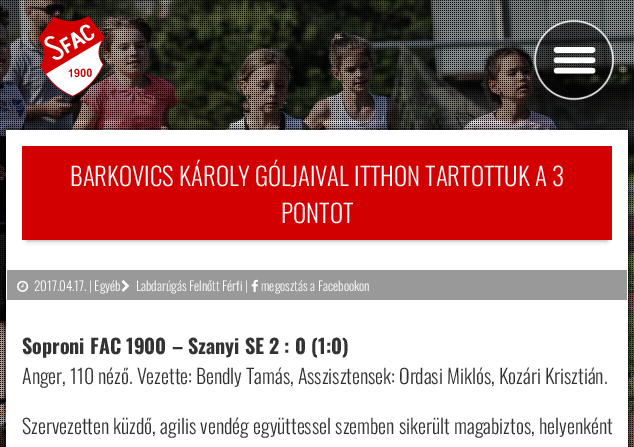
%!PS
<< /PageSize [634 447] /PageUsesTransparency true >> setpagedevice
/mt/moveto load def
/co { dup -16 bitshift 255 div exch dup -8 bitshift 255 and 255 div exch 255 and 255 div setrgbcolor } def
/fn { [ exch dup neg 0 0 3 -1 roll 0 0 ] selectfont } def
/tx { co fn moveto show } def
/bx { co rectfill } def
/al { dup .setfillconstantalpha .setstrokeconstantalpha } def
/rr { 5 dict begin { /r /h /w /y /x } { exch def } forall
  x r add y moveto x w add y 2 copy h add r arct x w add y h add x 1 index r arct
  x y h add x y r arct x y 2 copy exch w add exch r arct closepath end } def
/sh { 12 dict begin { /a /b /q /h /w /y /x } { exch def } forall gsave /was 0 def
  9 -2 -9 { dup b mul 4 div /e exch def 1 sub .425 mul 2.718 exch exp 1 add a .99 .min exch div /now exch def
    1 1 now sub 1 was sub div sub al /was now def
    w h .min e 2 mul add 0 gt { x e sub y e sub w e 2 mul add h e 2 mul add
      q e add b .6 mul add w h .min 2 div e add .min 0 .max rr fill } if } for grestore end } def
/im { 5 dict begin { /h /w /y /x /name } { exch def } forall
  gsave x y translate w h scale
  w h 8 [w 0 0 h 0 0] name (r) file false 3 colorimage grestore end } def
0 .pushpdf14devicefilter
0 447 translate 1 -1 scale
4 setmiterlimit
0 0 634 447 16#FFFFFF bx
(media/2.raw) 0 446 634 1 im
(media/1.raw) 0 0 634 447 im
(media/3.raw) 0 0 633 447 im
0.3 al
0 0 634 120 16#000000 bx
1 al
(media/4.raw) 38 16 67 81 im
(media/5.raw) 533 19 82 82 im
6 130 622 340 0 7.5 1 sh
6 130 622 317 16#FFFFFF bx
16#888888 co
27 156 580 84 0 2.5 1 sh
22 146 590 94 16#D20000 bx
7 270 620 30 16#999999 bx
(media/6.raw) 17 280 12 12 im
(media/7.raw) 121 280 9 12 im
(media/8.raw) 251 279 7 13 im
(BARKOVICS KÁROLY GÓLJAIVAL ITTHON TARTOTTUK A 3) 70 186 /Oswald-Light 25 16#FFFFFF tx
(PONTOT) 281 223 /Oswald-Light 25 16#FFFFFF tx
(2017.04.17. | Egyéb) 34 291 /Oswald-Light 13 16#FFFFFF tx
(Labdarúgás Felnőtt Férfi |) 136 291 /Oswald-Light 13 16#FFFFFF tx
(megosztás a Facebookon) 261 291 /Oswald-Light 13 16#FFFFFF tx
(Soproni FAC 1900 – Szanyi SE 2 : 0 \(1:0\)) 22 354 /Oswald-Bold 20 16#333333 tx
(Anger, 110 néző. Vezette: Bendly Tamás, Asszisztensek: Ordasi Miklós, Kozári Krisztián.) 22 384 /Oswald-Light 20 16#333333 tx
22 434 mt .25 0 32 (Szervezetten küzdő, agilis vendég együttessel szemben sikerült magabiztos, helyenként) widthshow
.poppdf14devicefilter showpage
